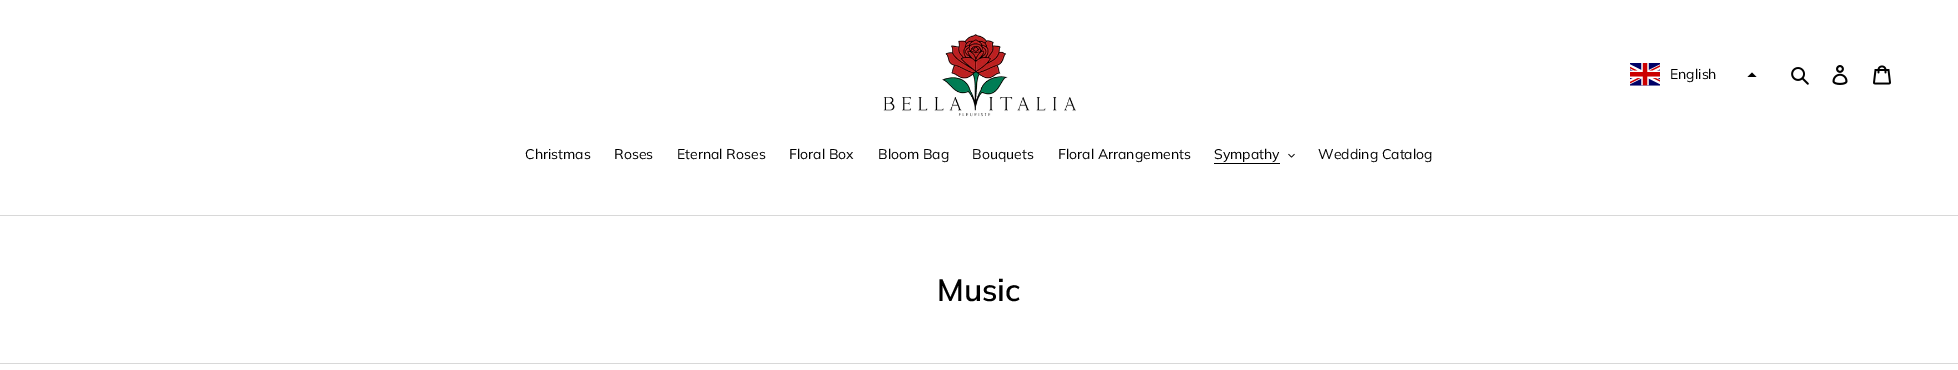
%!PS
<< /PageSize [1958 370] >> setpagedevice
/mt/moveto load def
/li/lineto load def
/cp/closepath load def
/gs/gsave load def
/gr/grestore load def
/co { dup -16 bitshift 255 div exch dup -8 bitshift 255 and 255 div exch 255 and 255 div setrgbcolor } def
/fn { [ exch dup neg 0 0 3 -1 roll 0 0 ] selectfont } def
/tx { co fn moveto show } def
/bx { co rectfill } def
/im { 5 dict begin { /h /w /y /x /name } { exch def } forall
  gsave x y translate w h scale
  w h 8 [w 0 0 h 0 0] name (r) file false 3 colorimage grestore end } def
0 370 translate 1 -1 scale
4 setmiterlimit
0 0 1958 370 16#FFFFFF bx
(media/1.raw) 883 34 193 83 im
(media/2.raw) 1630 63 30 23 im
gs
1747 72 10 5 rectclip
16#000000 co
1747 77.5 mt 1752 72.5 li 1757 77.5 li cp eofill
gr
(media/3.raw) 1791 67 18 18 im
(media/4.raw) 1832 65 16 20 im
(media/5.raw) 1873 65 18 20 im
0 215 1958 1 16#D8D8D8 bx
1214 163 66 1 16#000000 bx
(media/6.raw) 1288 153 7 5 im
0 363 1958 1 16#D8D8D8 bx
(English) 1670 79 /Muli-Regular 14 16#000000 tx
(Christmas) 525 159 /Muli-Regular 14 16#000000 tx
(Roses) 614 159 /Muli-Regular 14 16#000000 tx
(Eternal Roses) 677 159 /Muli-Regular 14 16#000000 tx
(Floral Box) 789 159 /Muli-Regular 14 16#000000 tx
(Bloom Bag) 878 159 /Muli-Regular 14 16#000000 tx
(Bouquets) 972 159 /Muli-Regular 14 16#000000 tx
(Floral Arrangements) 1058 159 /Muli-Regular 14 16#000000 tx
(Sympathy) 1214 159 /Muli-Regular 14 16#000000 tx
(Wedding Catalog) 1318 159 /Muli-Regular 14 16#000000 tx
(Music) 937 301 /Muli-SemiBold 31 16#000000 tx
showpage
